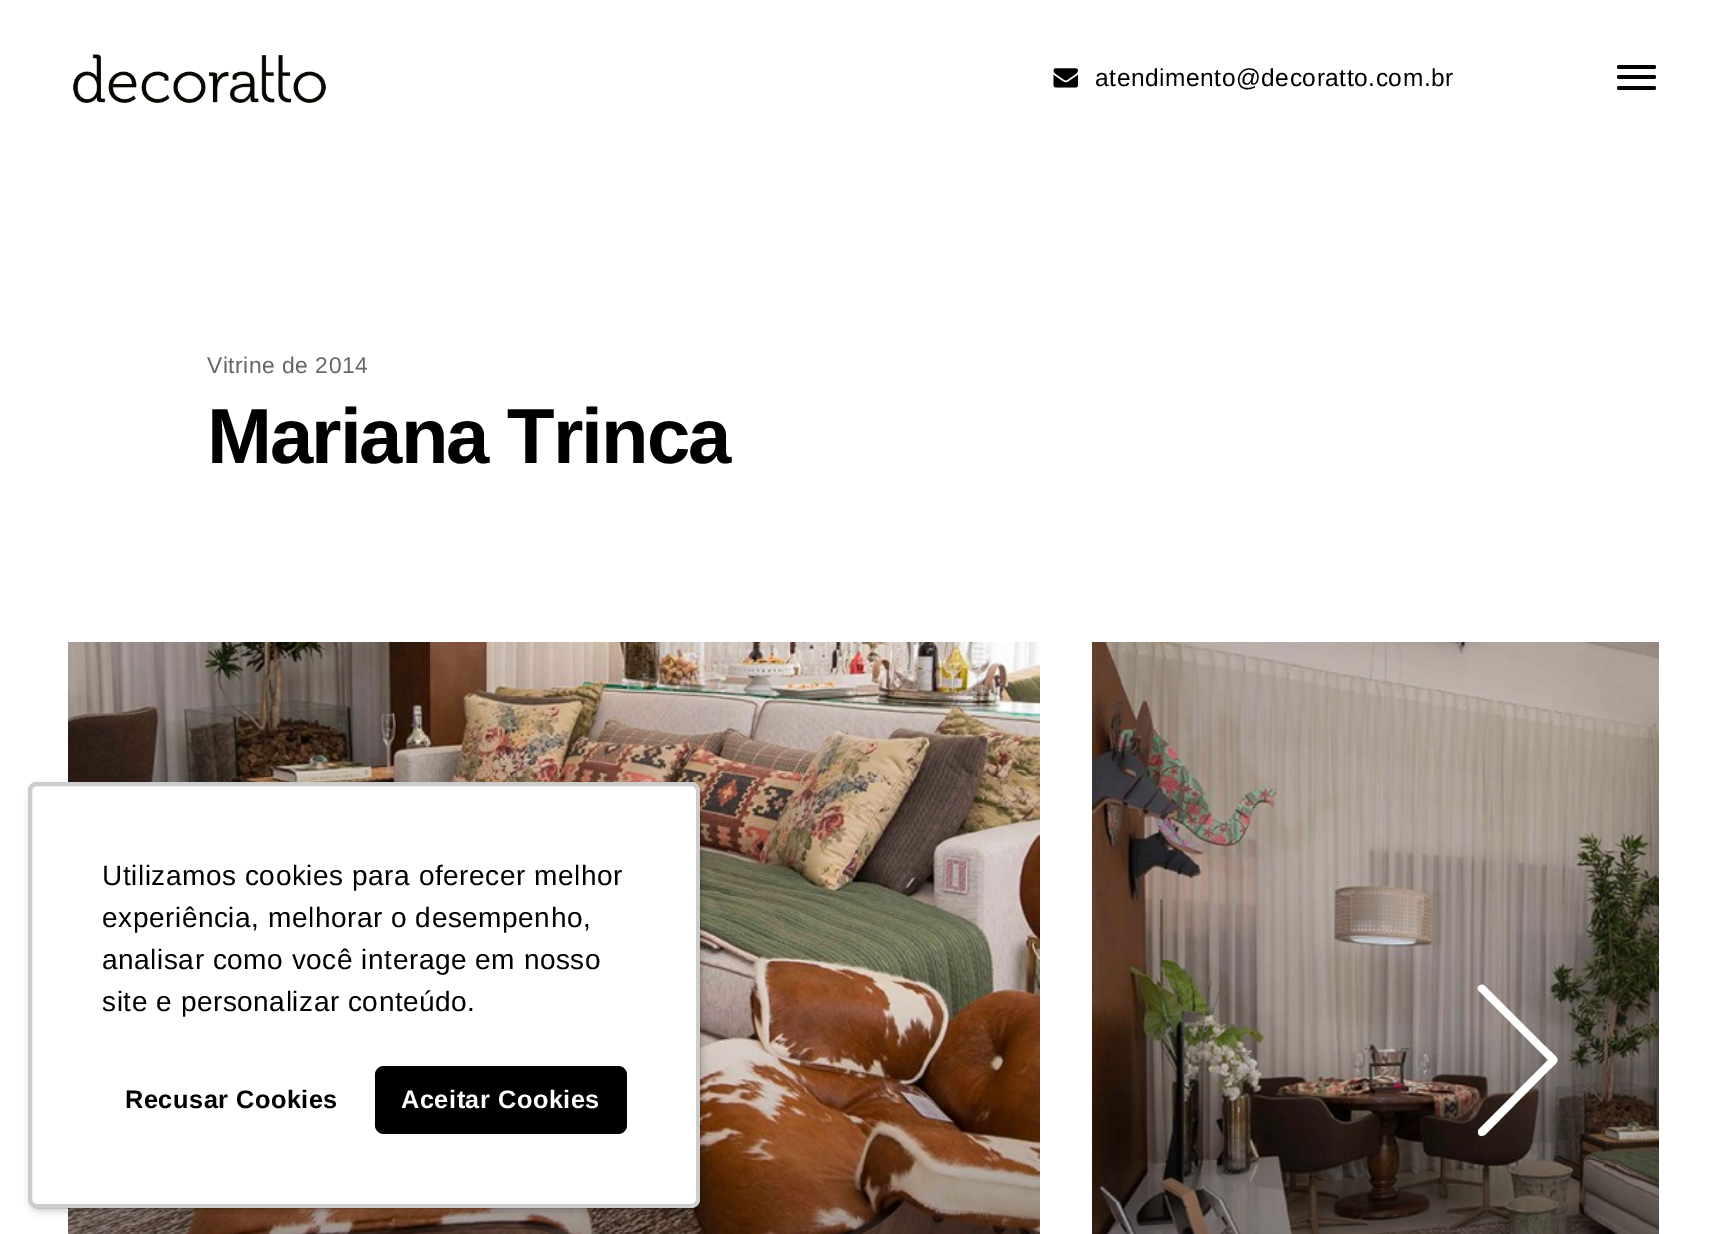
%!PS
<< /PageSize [1726 1234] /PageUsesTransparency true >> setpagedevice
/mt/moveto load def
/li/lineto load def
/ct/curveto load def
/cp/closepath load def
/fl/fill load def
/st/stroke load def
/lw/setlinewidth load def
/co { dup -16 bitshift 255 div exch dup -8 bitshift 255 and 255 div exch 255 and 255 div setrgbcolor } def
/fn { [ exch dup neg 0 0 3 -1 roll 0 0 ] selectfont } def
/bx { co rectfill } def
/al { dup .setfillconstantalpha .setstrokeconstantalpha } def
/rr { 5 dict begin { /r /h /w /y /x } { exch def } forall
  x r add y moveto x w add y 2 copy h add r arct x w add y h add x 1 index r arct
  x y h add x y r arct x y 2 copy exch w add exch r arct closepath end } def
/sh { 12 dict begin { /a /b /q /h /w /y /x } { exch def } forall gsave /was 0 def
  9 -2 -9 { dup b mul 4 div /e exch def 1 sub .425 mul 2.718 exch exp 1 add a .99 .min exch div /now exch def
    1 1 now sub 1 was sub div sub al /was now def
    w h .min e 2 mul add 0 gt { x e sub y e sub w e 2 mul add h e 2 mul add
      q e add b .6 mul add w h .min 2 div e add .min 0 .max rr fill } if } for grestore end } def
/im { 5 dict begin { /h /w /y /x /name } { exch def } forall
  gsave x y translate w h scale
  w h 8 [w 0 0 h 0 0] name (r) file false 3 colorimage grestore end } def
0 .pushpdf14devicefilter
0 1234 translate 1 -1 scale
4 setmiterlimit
0 0 1726 1234 16#FFFFFF bx
(media/1.raw) 73 54 253 49 im
(media/2.raw) 1053 68 25 20 im
16#000000 co
1617 65 39 4 2 rr fl
1617 75 39 4 2 rr fl
1617 86 39 4 2 rr fl
(media/3.raw) 68 642 972 592 im
(media/4.raw) 1092 642 567 592 im
16#FFFFFF co
1482 1136 mt 1478 1136 1477 1132 1479 1129 ct 1548 1060 li 1479 991 li 1475 988 1481 982 1485 986 ct 1544 1045 li 1562 1063 1562 1057 1544 1075 ct 1485 1135 li cp fl
16#000000 co
30 786 672 425 9 3.5 .1 sh
0.2 al
4 lw
30 784 668 422 7 rr st
1 al
30 786 672 425 9 3.5 .1 sh
16#FFFFFF co
28 782 672 426 9 rr fl
0.2 al
16#000000 co
30 784 668 422 7 rr st
1 al
375 1066 252 68 9 rr fl
/LiberationSans-Regular 24.5 fn
1095 86 mt .55 0 (atendimento@decoratto.com.br) ashow
/LiberationSans-Regular 22.75 fn
16#666666 co
207 373 mt .55 0 (Vitrine de 2014) ashow
/LiberationSans-Bold 78 fn
16#000000 co
207 463 mt -2 0 (Mariana Trinca) ashow
/LiberationSans-Regular 28 fn
102 885 mt .55 0 (Utilizamos cookies para oferecer melhor) ashow
102 927 mt .55 0 (experiência, melhorar o desempenho,) ashow
102 969 mt .55 0 (analisar como você interage em nosso) ashow
102 1011 mt .55 0 (site e personalizar conteúdo.) ashow
/LiberationSans-Bold 25.25 fn
125 1108 mt .55 0 (Recusar Cookies) ashow
16#FFFFFF co
401 1108 mt .55 0 (Aceitar Cookies) ashow
.poppdf14devicefilter showpage
